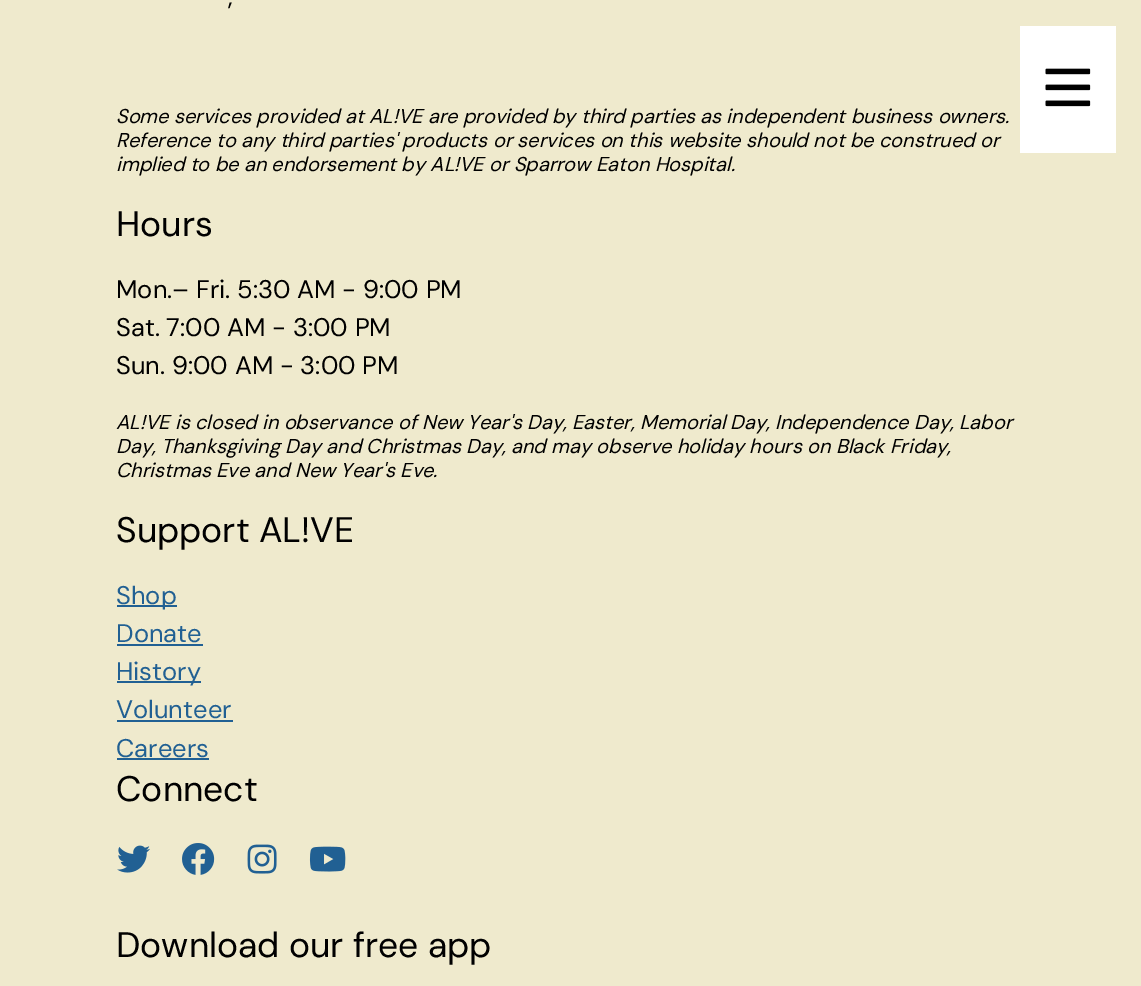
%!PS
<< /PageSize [1141 986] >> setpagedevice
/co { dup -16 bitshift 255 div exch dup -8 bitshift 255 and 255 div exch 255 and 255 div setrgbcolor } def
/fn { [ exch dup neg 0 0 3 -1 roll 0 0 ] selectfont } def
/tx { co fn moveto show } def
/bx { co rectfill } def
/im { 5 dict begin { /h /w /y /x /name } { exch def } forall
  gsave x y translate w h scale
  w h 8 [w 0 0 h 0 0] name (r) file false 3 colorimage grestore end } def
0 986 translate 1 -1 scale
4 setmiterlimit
0 0 1141 986 16#EFEACD bx
117 605 60 2 16#216093 bx
117 644 86 2 16#216093 bx
117 681 84 2 16#216093 bx
117 720 116 2 16#216093 bx
117 758 92 2 16#216093 bx
(media/1.raw) 117 845 33 28 im
(media/2.raw) 182 843 33 32 im
(media/3.raw) 247 844 30 30 im
(media/4.raw) 309 846 37 26 im
1020 26 96 127 16#FFFFFF bx
(media/5.raw) 1045 68 46 39 im
(,) 228 5 /DMSans-Regular 25.5 16#000000 tx
(Some services provided at AL!VE are provided by third parties as independent business owners.) 116 123 /DMSans-Italic 20 16#000000 tx
(Reference to any third parties' products or services on this website should not be construed or) 116 147 /DMSans-Italic 20 16#000000 tx
(implied to be an endorsement by AL!VE or Sparrow Eaton Hospital.) 116 171 /DMSans-Italic 20 16#000000 tx
(Hours) 116 236 /DMSans-Regular 35.5 16#000000 tx
(Mon.– Fri. 5:30 AM - 9:00 PM) 116 298 /DMSans-Regular 25.5 16#000000 tx
(Sat. 7:00 AM - 3:00 PM) 116 336 /DMSans-Regular 25.5 16#000000 tx
(Sun. 9:00 AM - 3:00 PM) 116 374 /DMSans-Regular 25.5 16#000000 tx
(AL!VE is closed in observance of New Year's Day, Easter, Memorial Day, Independence Day, Labor) 116 429 /DMSans-Italic 20 16#000000 tx
(Day, Thanksgiving Day and Christmas Day, and may observe holiday hours on Black Friday,) 116 453 /DMSans-Italic 20 16#000000 tx
(Christmas Eve and New Year's Eve.) 116 477 /DMSans-Italic 20 16#000000 tx
(Support AL!VE) 116 542 /DMSans-Regular 35.5 16#000000 tx
(Shop) 116 604 /DMSans-Regular 25.5 16#216093 tx
(Donate) 116 642 /DMSans-Regular 25.5 16#216093 tx
(History) 116 680 /DMSans-Regular 25.5 16#216093 tx
(Volunteer) 116 718 /DMSans-Regular 25.5 16#216093 tx
(Careers) 116 757 /DMSans-Regular 25.5 16#216093 tx
(Connect) 116 801 /DMSans-Regular 35.5 16#000000 tx
(Download our free app) 116 957 /DMSans-Regular 35.5 16#000000 tx
showpage
